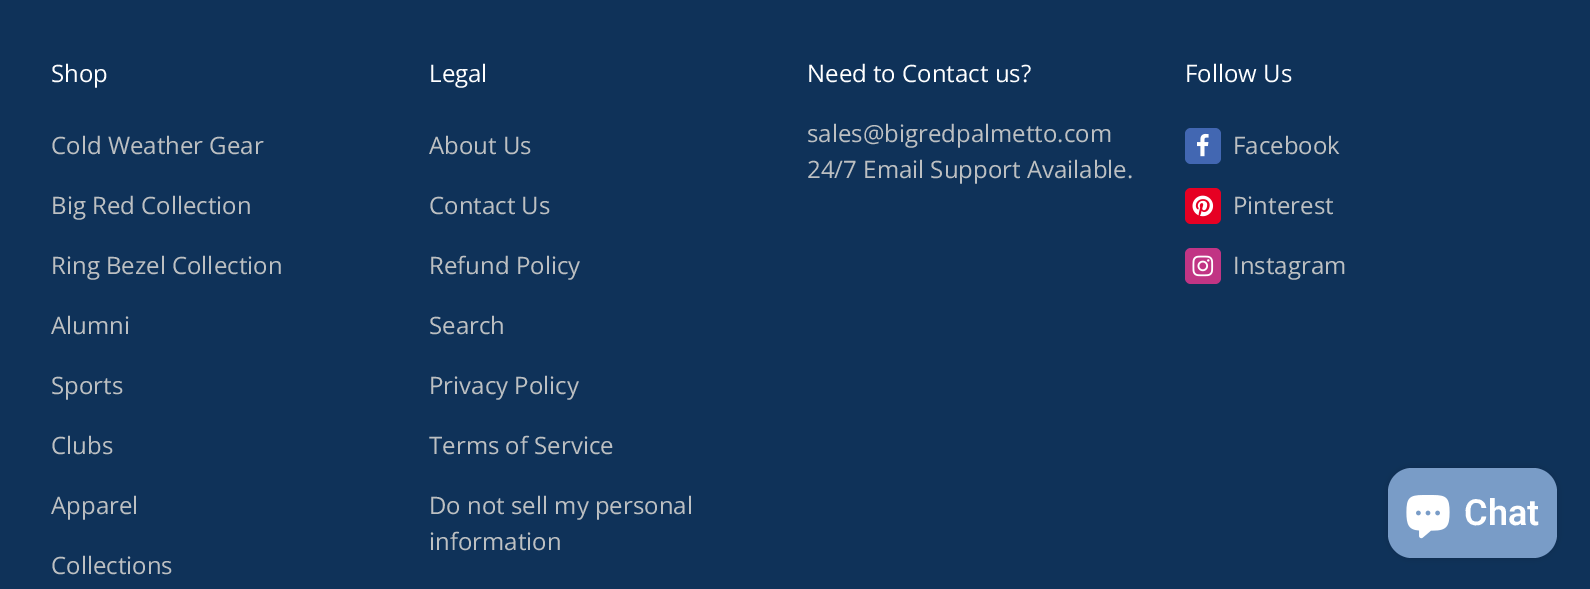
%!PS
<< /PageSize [1590 589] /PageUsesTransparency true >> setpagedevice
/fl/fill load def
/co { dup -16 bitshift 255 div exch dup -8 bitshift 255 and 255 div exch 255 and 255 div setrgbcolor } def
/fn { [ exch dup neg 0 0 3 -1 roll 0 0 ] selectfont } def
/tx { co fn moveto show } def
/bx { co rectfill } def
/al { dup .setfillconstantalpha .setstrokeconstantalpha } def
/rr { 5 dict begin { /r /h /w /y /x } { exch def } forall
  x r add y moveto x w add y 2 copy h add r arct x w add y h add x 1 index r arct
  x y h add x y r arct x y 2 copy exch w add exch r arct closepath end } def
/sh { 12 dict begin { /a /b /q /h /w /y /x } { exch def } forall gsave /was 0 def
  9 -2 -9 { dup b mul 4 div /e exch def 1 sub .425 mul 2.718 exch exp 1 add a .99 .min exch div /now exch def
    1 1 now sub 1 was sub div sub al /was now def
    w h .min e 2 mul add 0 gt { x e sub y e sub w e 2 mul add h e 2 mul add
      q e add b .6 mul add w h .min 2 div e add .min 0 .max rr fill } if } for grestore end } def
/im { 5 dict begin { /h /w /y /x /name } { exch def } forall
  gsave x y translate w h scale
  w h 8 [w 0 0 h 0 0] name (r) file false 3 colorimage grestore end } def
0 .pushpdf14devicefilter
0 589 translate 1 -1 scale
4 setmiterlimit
0 0 1590 589 16#0F3259 bx
16#4267B2 co
1185 128 36 36 6 rr fl
(media/1.raw) 1197 133 12 24 im
16#E60023 co
1185 188 36 36 6 rr fl
(media/2.raw) 1192 195 22 22 im
16#C13584 co
1185 248 36 36 6 rr fl
(media/3.raw) 1192 255 22 22 im
16#000000 co
1388 468 169 90 24 4 .15 sh
16#799CC7 co
1388 468 169 90 24 rr fl
(media/4.raw) 1406 495 44 44 im
(Shop) 51 82 /OpenSans-Regular 24 16#FFFFFF tx
(Cold Weather Gear) 51 154 /OpenSans-Regular 24 16#BDC0C2 tx
(Big Red Collection) 51 214 /OpenSans-Regular 24 16#BDC0C2 tx
(Ring Bezel Collection) 51 274 /OpenSans-Regular 24 16#BDC0C2 tx
(Alumni) 51 334 /OpenSans-Regular 24 16#BDC0C2 tx
(Sports) 51 394 /OpenSans-Regular 24 16#BDC0C2 tx
(Clubs) 51 454 /OpenSans-Regular 24 16#BDC0C2 tx
(Apparel) 51 514 /OpenSans-Regular 24 16#BDC0C2 tx
(Collections) 51 574 /OpenSans-Regular 24 16#BDC0C2 tx
(Legal) 429 82 /OpenSans-Regular 24 16#FFFFFF tx
(About Us) 429 154 /OpenSans-Regular 24 16#BDC0C2 tx
(Contact Us) 429 214 /OpenSans-Regular 24 16#BDC0C2 tx
(Refund Policy) 429 274 /OpenSans-Regular 24 16#BDC0C2 tx
(Search) 429 334 /OpenSans-Regular 24 16#BDC0C2 tx
(Privacy Policy) 429 394 /OpenSans-Regular 24 16#BDC0C2 tx
(Terms of Service) 429 454 /OpenSans-Regular 24 16#BDC0C2 tx
(Do not sell my personal) 429 514 /OpenSans-Regular 24 16#BDC0C2 tx
(information) 429 550 /OpenSans-Regular 24 16#BDC0C2 tx
(Need to Contact us?) 807 82 /OpenSans-Regular 24 16#FFFFFF tx
(sales@bigredpalmetto.com) 807 142 /OpenSans-Regular 24 16#BDC0C2 tx
(24/7 Email Support Available.) 807 178 /OpenSans-Regular 24 16#BDC0C2 tx
(Follow Us) 1185 82 /OpenSans-Regular 24 16#FFFFFF tx
(Facebook) 1233 154 /OpenSans-Regular 24 16#BDC0C2 tx
(Pinterest) 1233 214 /OpenSans-Regular 24 16#BDC0C2 tx
(Instagram) 1233 274 /OpenSans-Regular 24 16#BDC0C2 tx
(Chat) 1464 525 /Roboto-SemiBold 36 16#FFFFFF tx
.poppdf14devicefilter showpage
